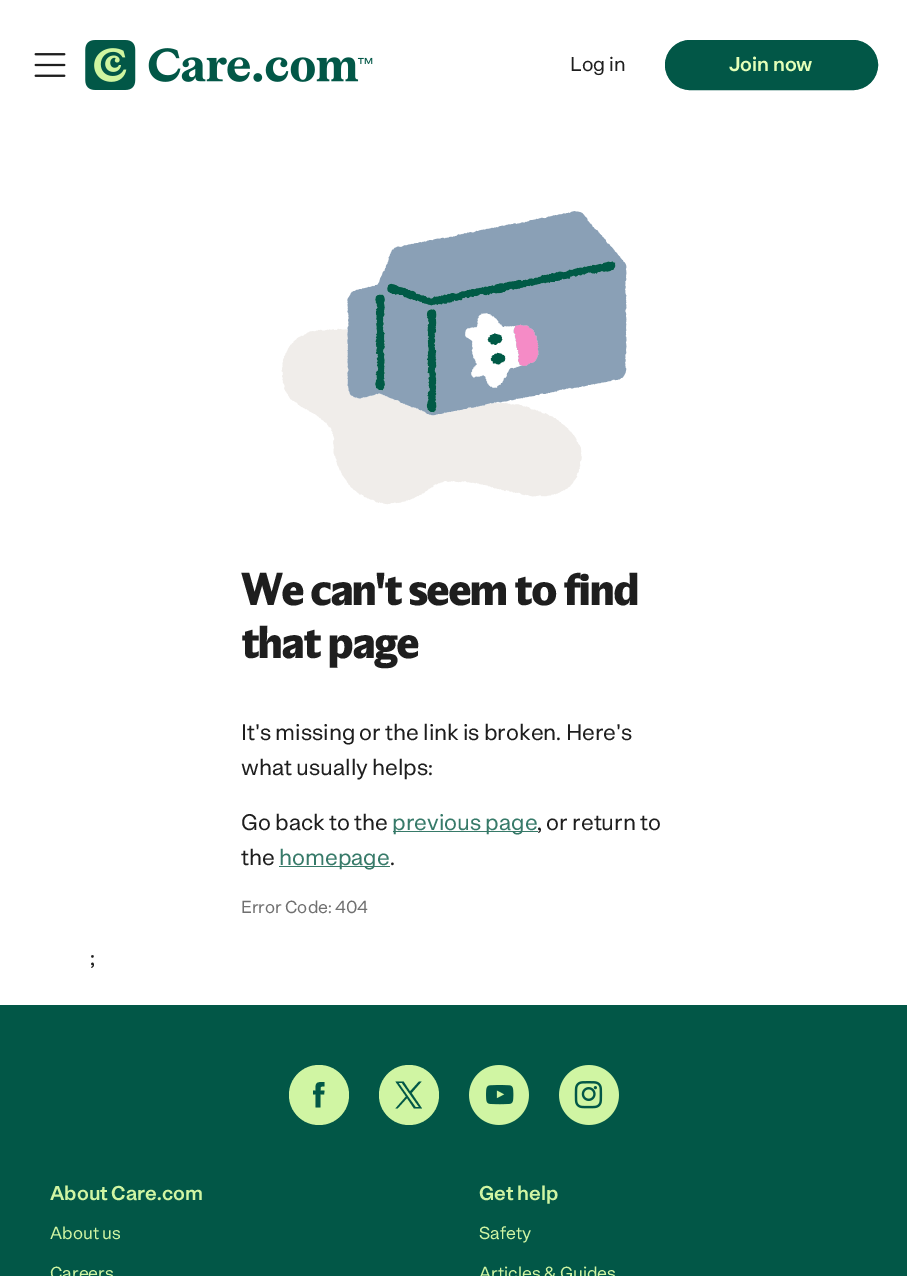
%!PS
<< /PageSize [907 1276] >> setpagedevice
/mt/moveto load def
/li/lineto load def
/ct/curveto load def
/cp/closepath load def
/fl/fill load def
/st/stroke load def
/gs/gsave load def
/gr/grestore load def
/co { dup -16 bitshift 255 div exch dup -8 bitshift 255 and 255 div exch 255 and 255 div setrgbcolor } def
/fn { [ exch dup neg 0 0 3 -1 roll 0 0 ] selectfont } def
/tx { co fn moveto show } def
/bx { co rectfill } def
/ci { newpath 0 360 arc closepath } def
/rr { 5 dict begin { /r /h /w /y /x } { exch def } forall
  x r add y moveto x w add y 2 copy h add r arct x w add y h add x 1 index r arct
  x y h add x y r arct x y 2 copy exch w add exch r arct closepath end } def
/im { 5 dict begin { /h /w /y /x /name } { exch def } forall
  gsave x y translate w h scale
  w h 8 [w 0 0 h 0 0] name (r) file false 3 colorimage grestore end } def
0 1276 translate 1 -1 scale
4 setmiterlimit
0 0 907 1276 16#FFFFFF bx
(media/1.raw) 34 53 32 24 im
(media/2.raw) 85 40 288 50 im
16#025747 co
665.5 40.5 212 49 24.5 rr gs fl gr
st
(media/3.raw) 281 211 346 294 im
393 831 145 1 16#377A69 bx
279 866 111 1 16#377A69 bx
0 1005 907 271 16#025747 bx
16#D0F5A3 co
319 1095 30 ci fl
16#025747 co
324.5 1086.5 mt 324.5 1082 li 316 1082 315.5 1082.5 315.5 1090.5 ct 313 1090.5 li 313 1094.5 li 315.5 1094.5 li 315.5 1107.5 li 320.5 1107.5 li 320.5 1094.5 li 324 1094.5 li 324.5 1090.5 li 320.5 1090.5 li 320.5 1086 320.5 1086.5 324.5 1086.5 ct cp eofill
16#D0F5A3 co
409 1095 30 ci fl
16#025747 co
411.5 1093 mt 421.5 1081.5 li 419 1081.5 li 410 1091.5 li 403.5 1081.5 li 395.5 1081.5 li 406 1096.5 li 395.5 1108.5 li 397.5 1108.5 li 407 1098 li 414 1108.5 li 422 1108.5 li cp 408 1096.5 mt 398.5 1083 li 402 1083 li 419 1107 li 415.5 1107 li cp fl
(media/4.raw) 469 1065 60 60 im
(media/5.raw) 559 1065 60 60 im
(Log in) 570 71 /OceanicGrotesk-Regular 20 16#1E1E1E tx
(Join now) 729 71 /OceanicGrotesk-Medium 20 16#E4FFB8 tx
/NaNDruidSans-Bold 45 fn
16#1E1E1E co
241 605 mt -1.2 0 (We can't seem to find) ashow
241 658 mt -1.2 0 (that page) ashow
(It's missing or the link is broken. Here's) 241 740 /OceanicGrotesk-Regular 22.5 16#1E1E1E tx
(what usually helps:) 241 775 /OceanicGrotesk-Regular 22.5 16#1E1E1E tx
(Go back to the) 241 830 /OceanicGrotesk-Regular 22.5 16#1E1E1E tx
(previous page) 392 830 /OceanicGrotesk-Regular 22.5 16#377A69 tx
(, or return to) 537 830 /OceanicGrotesk-Regular 22.5 16#1E1E1E tx
(the) 241 865 /OceanicGrotesk-Regular 22.5 16#1E1E1E tx
(homepage) 279 865 /OceanicGrotesk-Regular 22.5 16#377A69 tx
(.) 390 865 /OceanicGrotesk-Regular 22.5 16#1E1E1E tx
(Error Code: 404) 241 913 /OceanicGrotesk-Regular 17.5 16#707070 tx
(;) 90 965 /OceanicGrotesk-Regular 22.5 16#1E1E1E tx
(About Care.com) 50 1200 /OceanicGrotesk-Medium 20 16#D0F5A3 tx
(About us) 50 1239 /OceanicGrotesk-Regular 17.5 16#D0F5A3 tx
(Careers) 50 1279 /OceanicGrotesk-Regular 17.5 16#D0F5A3 tx
(Get help) 479 1200 /OceanicGrotesk-Medium 20 16#D0F5A3 tx
(Safety) 479 1239 /OceanicGrotesk-Regular 17.5 16#D0F5A3 tx
(Articles & Guides) 479 1279 /OceanicGrotesk-Regular 17.5 16#D0F5A3 tx
showpage
